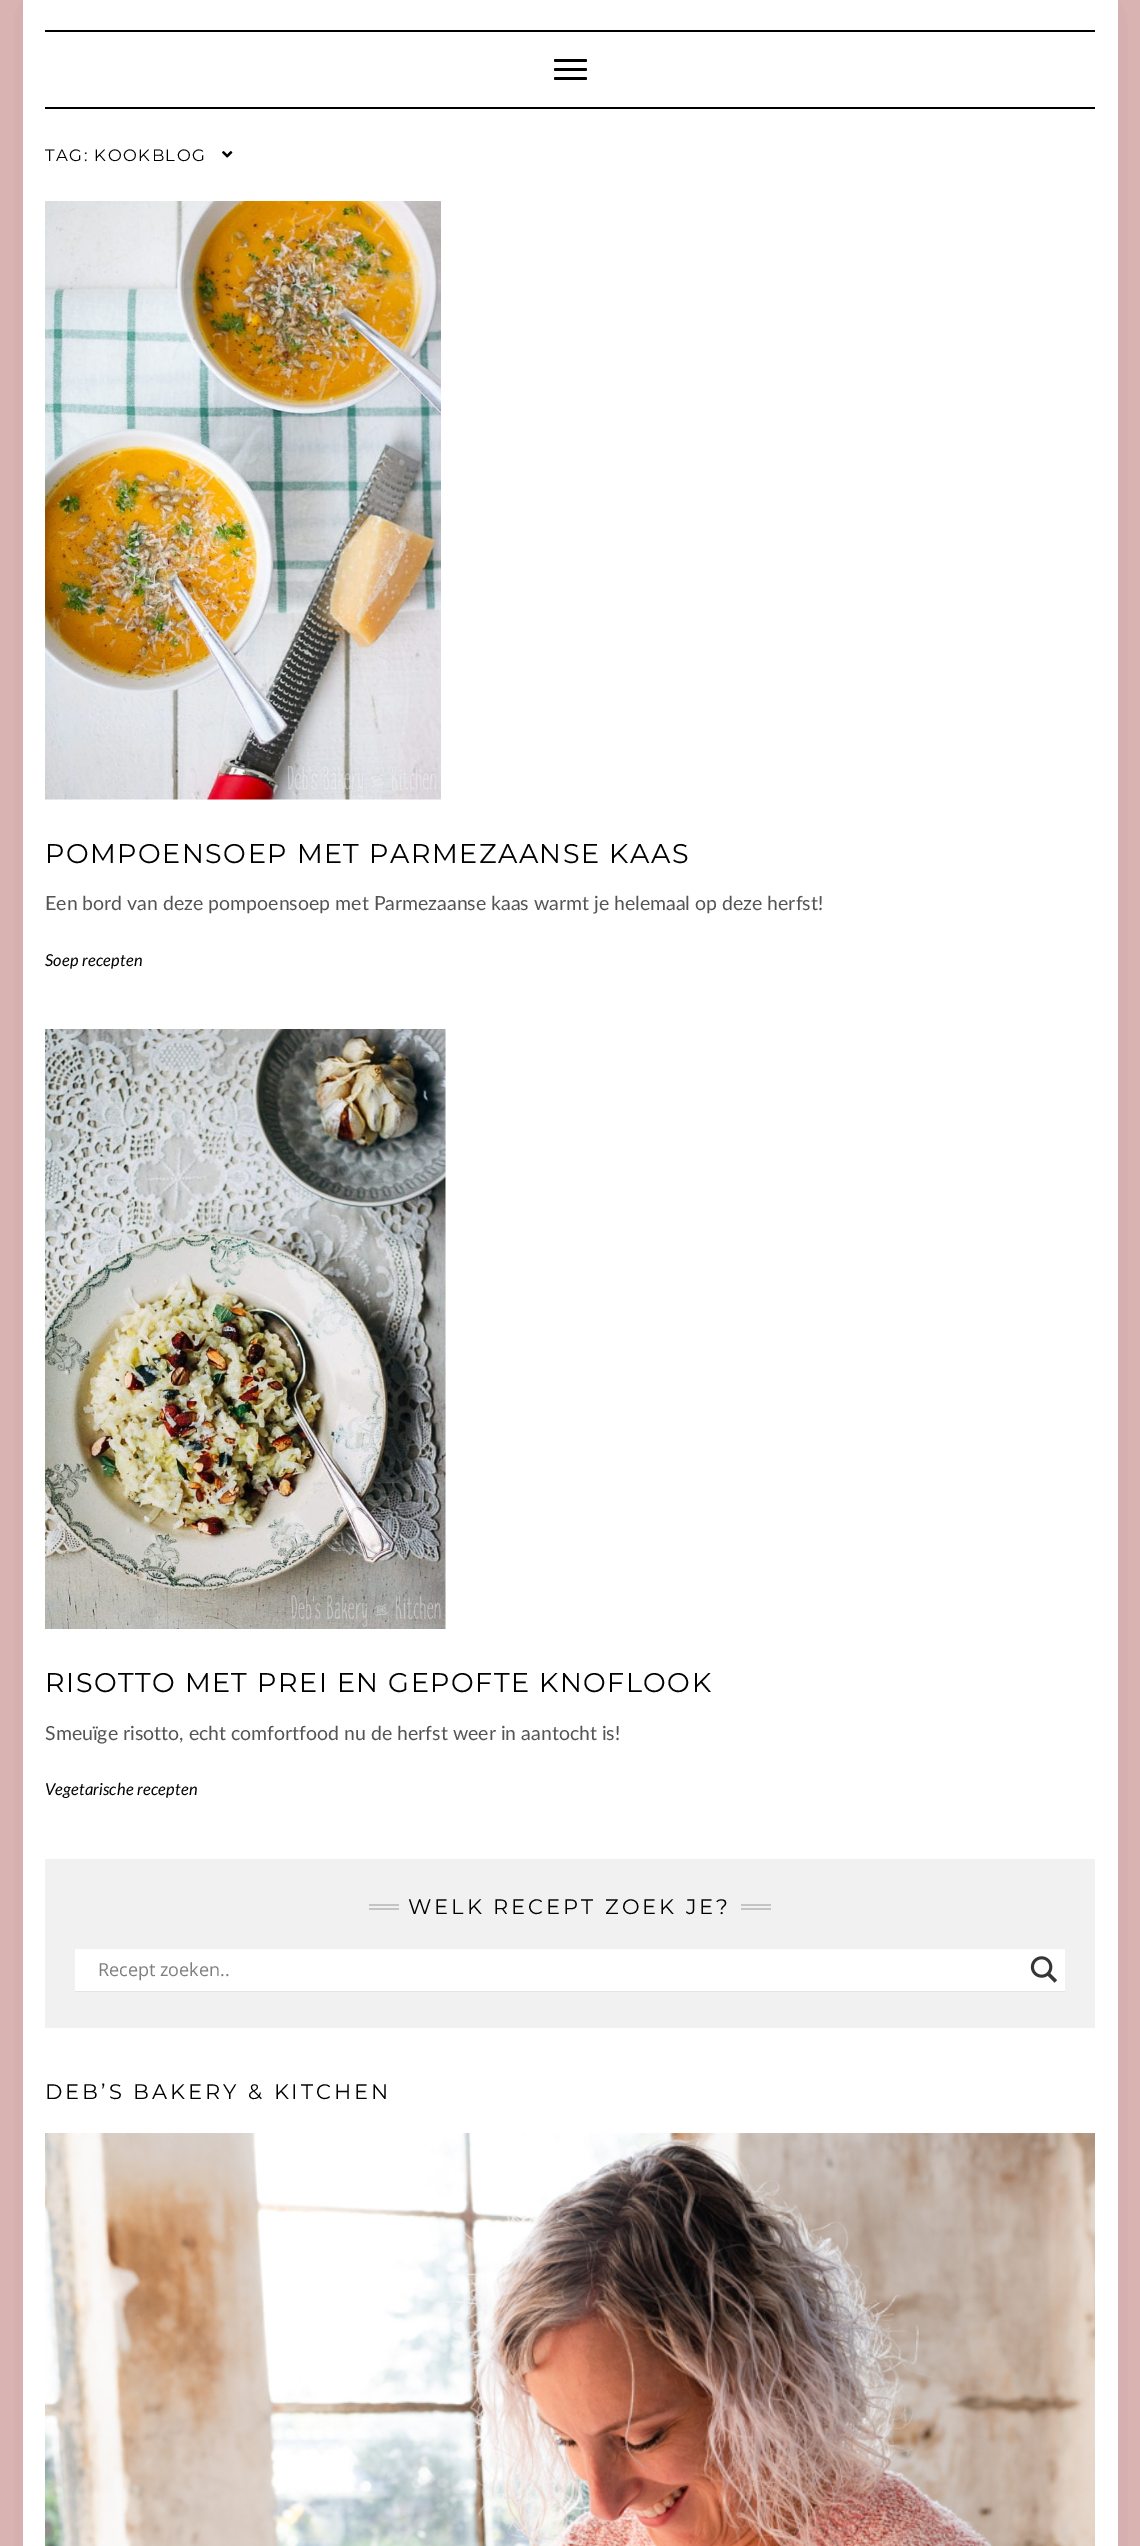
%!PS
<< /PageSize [1140 2546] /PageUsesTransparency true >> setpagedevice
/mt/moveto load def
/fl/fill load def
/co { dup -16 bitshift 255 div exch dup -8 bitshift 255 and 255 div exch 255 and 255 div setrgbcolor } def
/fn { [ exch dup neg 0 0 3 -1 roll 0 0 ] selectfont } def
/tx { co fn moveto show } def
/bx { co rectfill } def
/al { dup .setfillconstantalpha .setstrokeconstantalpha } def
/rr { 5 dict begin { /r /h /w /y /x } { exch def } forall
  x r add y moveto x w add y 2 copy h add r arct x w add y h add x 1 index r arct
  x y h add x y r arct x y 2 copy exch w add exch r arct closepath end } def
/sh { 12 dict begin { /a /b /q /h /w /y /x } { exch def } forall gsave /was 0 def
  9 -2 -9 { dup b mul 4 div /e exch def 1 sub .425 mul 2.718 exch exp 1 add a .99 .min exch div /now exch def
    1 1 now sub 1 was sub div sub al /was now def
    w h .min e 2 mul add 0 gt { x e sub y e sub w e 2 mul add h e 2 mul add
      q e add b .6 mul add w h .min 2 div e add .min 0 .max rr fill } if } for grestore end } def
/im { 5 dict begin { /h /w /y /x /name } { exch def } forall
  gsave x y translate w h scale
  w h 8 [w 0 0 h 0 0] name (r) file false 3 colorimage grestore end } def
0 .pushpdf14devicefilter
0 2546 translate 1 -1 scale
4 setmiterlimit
0 0 1140 2546 16#DDB5B5 bx
16#000000 co
23 0 1095 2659 0 37.5 .06 sh
23 0 1095 2546 16#FFFFFF bx
45 30 1050 2 16#000000 bx
45 107 1050 2 16#000000 bx
554 59 33 3 1.5 rr fl
554 68 33 3 1.5 rr fl
554 77 33 3 1.5 rr fl
(media/1.raw) 222 151 11 7 im
(media/2.raw) 45 201 396 599 im
(media/3.raw) 45 1029 401 600 im
45 1859 1050 169 16#F1F1F1 bx
369 1904 30 2 16#C4C4C4 bx
369 1908 30 2 16#C4C4C4 bx
741 1904 30 2 16#C4C4C4 bx
741 1908 30 2 16#C4C4C4 bx
75 1991 990 1 16#E4E4E4 bx
75 1949 990 42 16#FFFFFF bx
(media/4.raw) 1030 1956 28 27 im
(media/5.raw) 45 2133 1050 413 im
/Montserrat-Regular 16.5 fn
16#000000 co
45 161 mt 1.5 0 (TAG: KOOKBLOG) ashow
/Montserrat-Regular 27 fn
45 863 mt 1.5 0 (POMPOENSOEP MET PARMEZAANSE KAAS) ashow
(Een bord van deze pompoensoep met Parmezaanse kaas warmt je helemaal op deze herfst!) 45 910 /Lato-Regular 19.5 16#545454 tx
(Soep recepten) 45 966 /Lato-Italic 16.5 16#000000 tx
/Montserrat-Regular 27 fn
45 1692 mt 1.5 0 (RISOTTO MET PREI EN GEPOFTE KNOFLOOK) ashow
(Smeuïge risotto, echt comfortfood nu de herfst weer in aantocht is!) 45 1740 /Lato-Regular 19.5 16#545454 tx
(Vegetarische recepten) 45 1795 /Lato-Italic 16.5 16#000000 tx
/Montserrat-Regular 21 fn
408 1914 mt 3 0 (WELK RECEPT ZOEK JE?) ashow
(Recept zoeken..) 98 1976 /OpenSans-Regular 18 16#7D7D7D tx
/Montserrat-Regular 21 fn
16#000000 co
45 2099 mt 3 0 (DEB’S BAKERY & KITCHEN) ashow
.poppdf14devicefilter showpage
